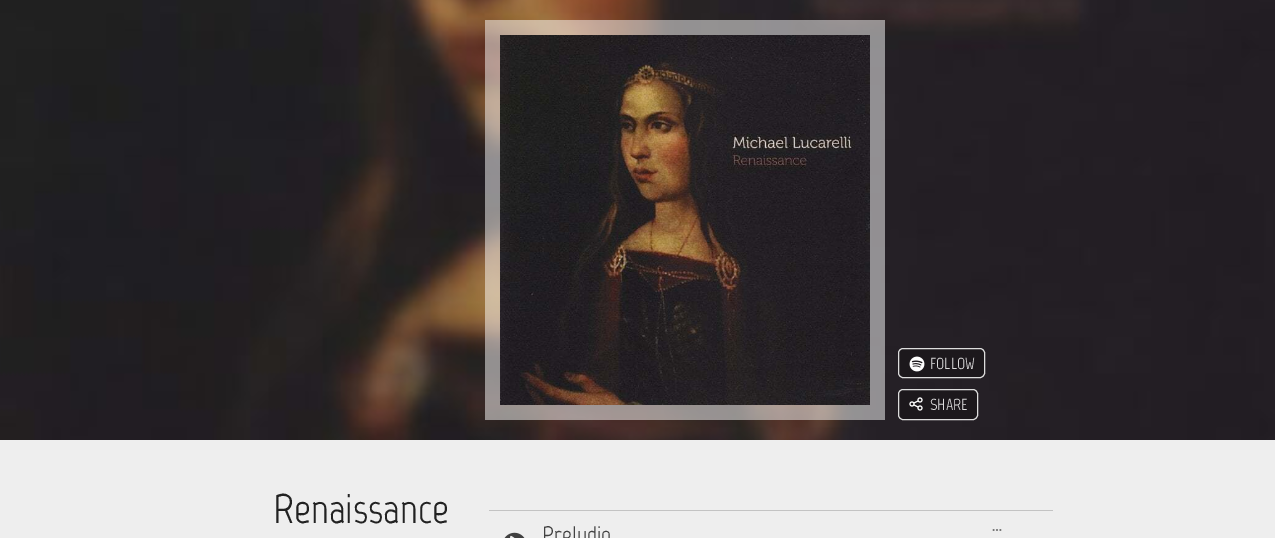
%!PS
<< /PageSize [1275 538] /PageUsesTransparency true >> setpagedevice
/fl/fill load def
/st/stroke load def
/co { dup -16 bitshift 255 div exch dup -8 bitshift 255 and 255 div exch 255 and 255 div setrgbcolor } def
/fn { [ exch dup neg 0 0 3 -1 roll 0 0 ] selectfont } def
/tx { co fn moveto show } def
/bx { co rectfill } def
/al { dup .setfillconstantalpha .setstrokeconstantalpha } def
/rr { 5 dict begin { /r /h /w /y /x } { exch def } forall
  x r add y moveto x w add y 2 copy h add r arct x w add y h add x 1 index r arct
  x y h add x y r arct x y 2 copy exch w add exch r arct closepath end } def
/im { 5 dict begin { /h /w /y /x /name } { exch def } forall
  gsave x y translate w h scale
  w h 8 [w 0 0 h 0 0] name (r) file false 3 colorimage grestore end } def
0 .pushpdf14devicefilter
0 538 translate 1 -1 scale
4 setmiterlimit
0 0 1275 538 16#EEEEEE bx
(media/1.raw) 0 0 1275 440 im
0.5 al
485 20 400 400 16#FFFFFF bx
1 al
(media/2.raw) 500 35 370 370 im
16#1C181C co
898 348 87 30 5 rr fl
0.85 al
16#FFFFFF co
898.5 348.5 86 29 4.5 rr st
1 al
(media/3.raw) 909 356 16 16 im
16#1C181C co
898 389 80 31 5 rr fl
0.85 al
16#FFFFFF co
898.5 389.5 79 30 4.5 rr st
1 al
(media/4.raw) 909 397 14 14 im
16#C3C3C3 co
489 510 564 1 .5 rr fl
(media/5.raw) 504 532 21 6 im
(media/6.raw) 992 529 10 2 im
(FOLLOW) 930 369 /Marvel-Regular 16 16#DDDCDD tx
(SHARE) 930 410 /Marvel-Regular 16 16#DDDCDD tx
(Renaissance) 273 523 /Marvel-Regular 41.5 16#222222 tx
(Preludio) 542 543 /Marvel-Regular 24 16#414141 tx
.poppdf14devicefilter showpage
